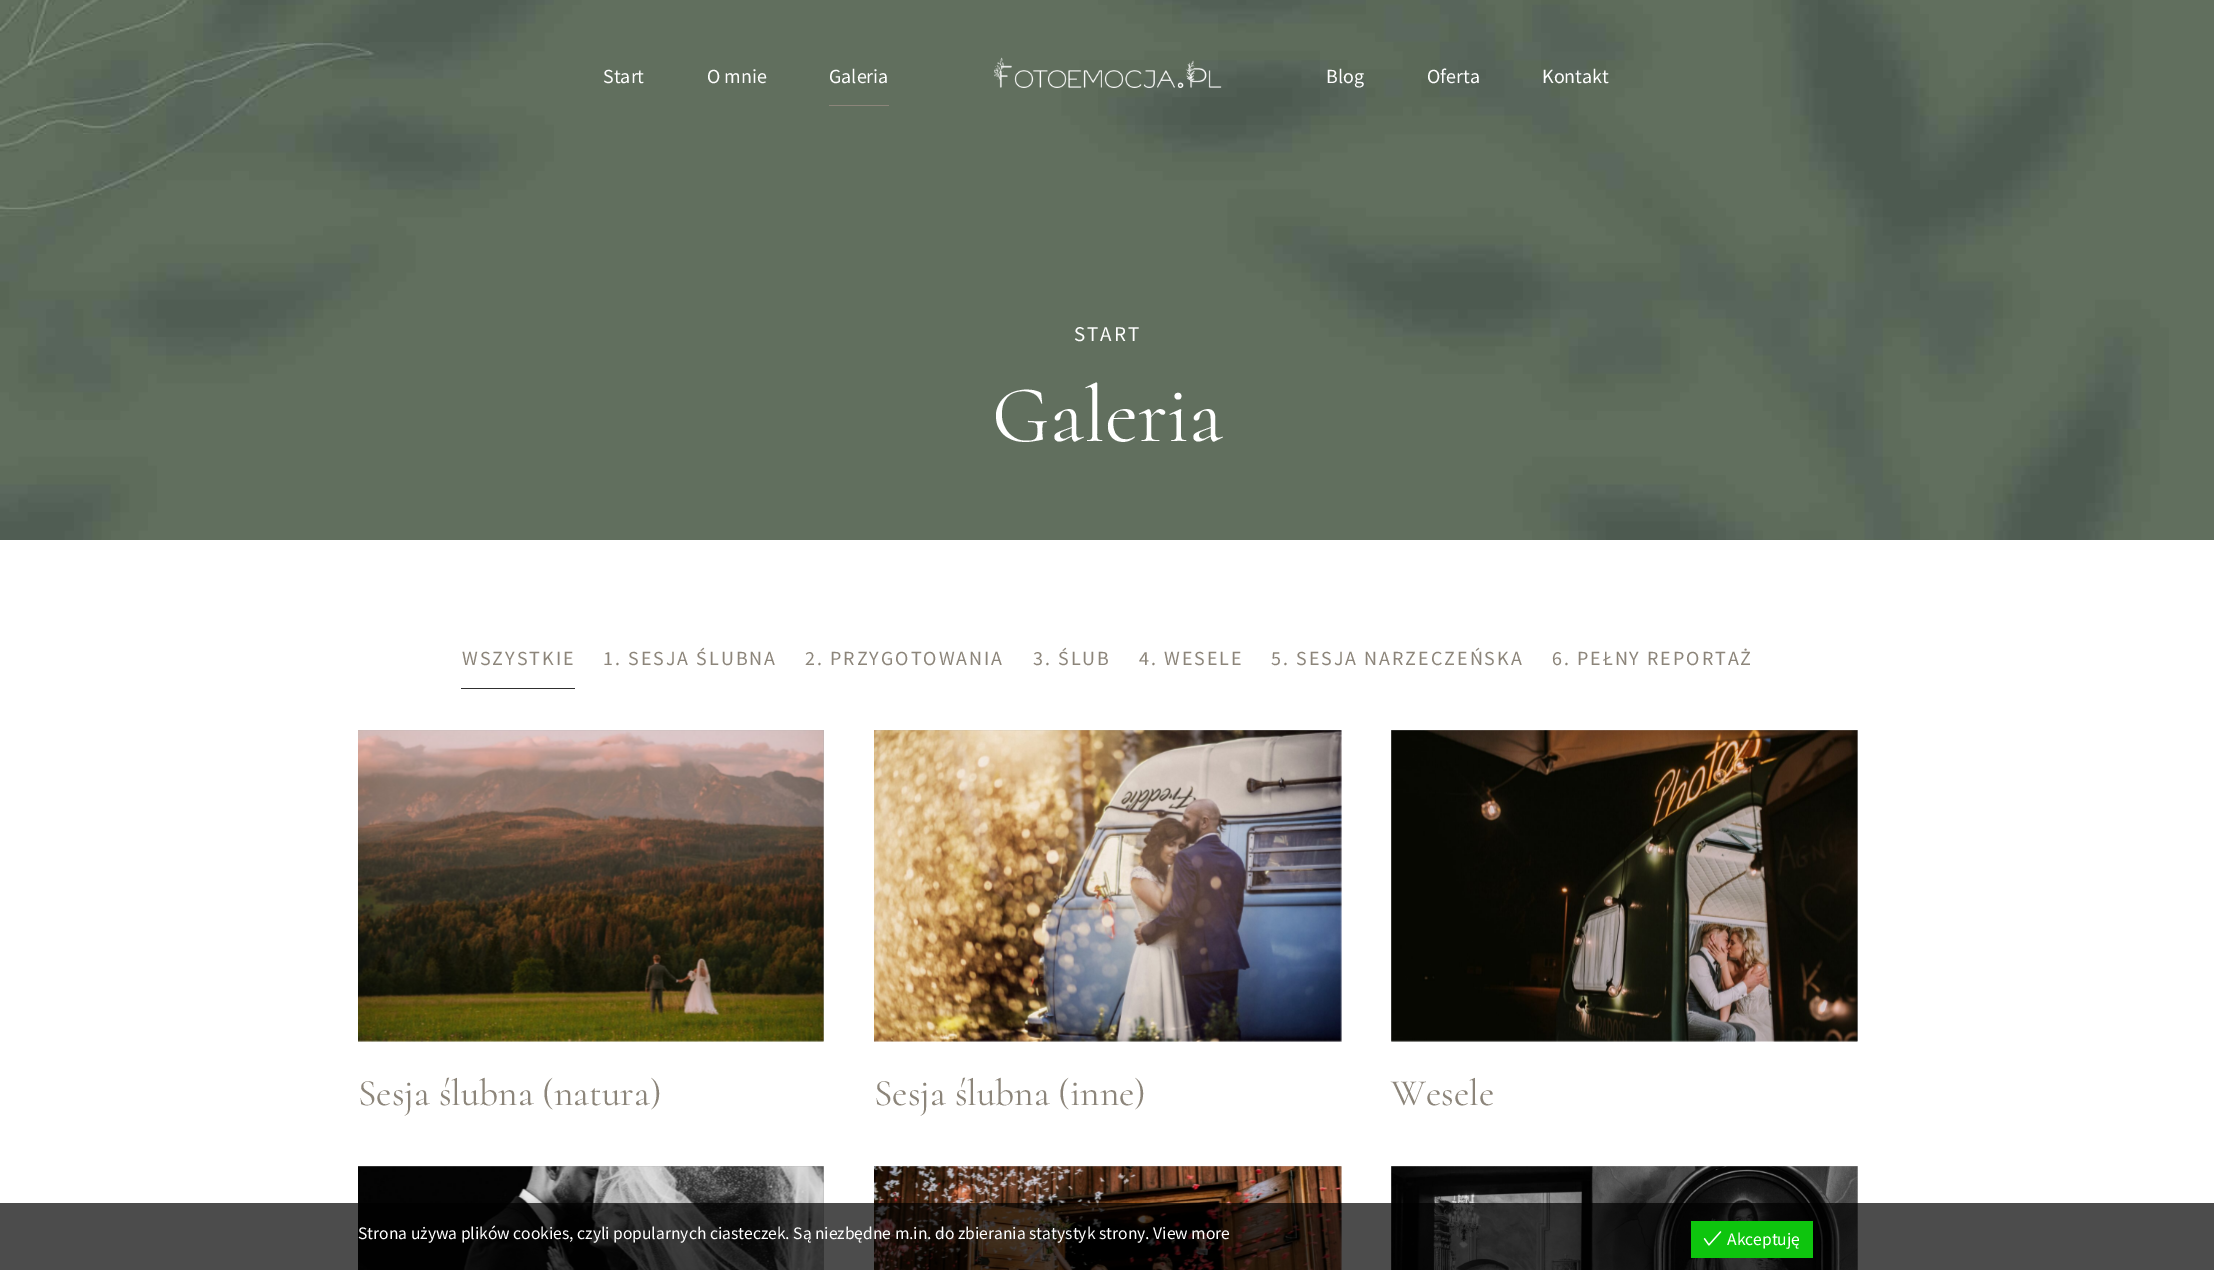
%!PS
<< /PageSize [2214 1270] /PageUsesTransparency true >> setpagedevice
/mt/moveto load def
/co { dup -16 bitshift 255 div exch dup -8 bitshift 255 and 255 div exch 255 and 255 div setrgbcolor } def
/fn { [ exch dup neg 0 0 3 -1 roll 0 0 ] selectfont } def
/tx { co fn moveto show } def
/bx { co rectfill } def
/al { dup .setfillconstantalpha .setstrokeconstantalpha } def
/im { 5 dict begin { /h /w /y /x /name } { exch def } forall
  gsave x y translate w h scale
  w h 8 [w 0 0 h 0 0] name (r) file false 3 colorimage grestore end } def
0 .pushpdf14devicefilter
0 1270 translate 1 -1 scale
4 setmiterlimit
0 0 2214 1270 16#FFFFFF bx
(media/2.raw) 0 0 2214 540 im
(media/1.raw) 994 57 228 31 im
829 105 60 1 16#8C857A bx
461 688 114 1 16#2F2F2F bx
358 730 466 311 16#B3B3B3 bx
(media/3.raw) 358 730 466 312 im
(media/4.raw) 874 730 468 312 im
1391 730 467 311 16#B3B3B3 bx
(media/5.raw) 1391 730 467 312 im
358 1166 466 104 16#B3B3B3 bx
(media/6.raw) 358 1166 466 104 im
874 1166 467 104 16#B3B3B3 bx
(media/7.raw) 874 1166 468 104 im
1391 1166 467 104 16#B3B3B3 bx
(media/8.raw) 1391 1166 467 104 im
0.7 al
0 1203 2214 67 16#000000 bx
1 al
1691 1221 122 37 16#0EC50E bx
(media/9.raw) 1703 1231 19 15 im
(Start) 603 83 /SourceSansPro-Regular 20 16#FFFFFF tx
(O mnie) 707 83 /SourceSansPro-Regular 20 16#FFFFFF tx
(Galeria) 829 83 /SourceSansPro-Regular 20 16#FFFFFF tx
(Blog) 1326 83 /SourceSansPro-Regular 20 16#FFFFFF tx
(Oferta) 1427 83 /SourceSansPro-Regular 20 16#FFFFFF tx
(Kontakt) 1542 83 /SourceSansPro-Regular 20 16#FFFFFF tx
/SourceSansPro-Regular 21 fn
1074 341 mt 2 0 (START) ashow
(Galeria) 992 441 /Cormorant-Regular 81 16#FFFFFF tx
/SourceSansPro-Regular 20 fn
16#8C857A co
462 665 mt 2 0 (WSZYSTKIE) ashow
603 665 mt 2 0 (1. SESJA ŚLUBNA) ashow
805 665 mt 2 0 (2. PRZYGOTOWANIA) ashow
1033 665 mt 2 0 (3. ŚLUB) ashow
1139 665 mt 2 0 (4. WESELE) ashow
1271 665 mt 2 0 (5. SESJA NARZECZEŃSKA) ashow
1552 665 mt 2 0 (6. PEŁNY REPORTAŻ) ashow
(Sesja ślubna \(natura\)) 358 1105 /Cormorant-Regular 37.5 16#8C857A tx
(Sesja ślubna \(inne\)) 874 1105 /Cormorant-Regular 37.5 16#8C857A tx
(Wesele) 1391 1105 /Cormorant-Regular 37.5 16#8C857A tx
(Strona używa plików cookies, czyli popularnych ciasteczek. Są niezbędne m.in. do zbierania statystyk strony. View more) 358 1239 /SourceSansPro-Regular 17.5 16#FFFFFF tx
(Akceptuję) 1727 1245 /SourceSansPro-Regular 17.5 16#FFFFFF tx
.poppdf14devicefilter showpage
